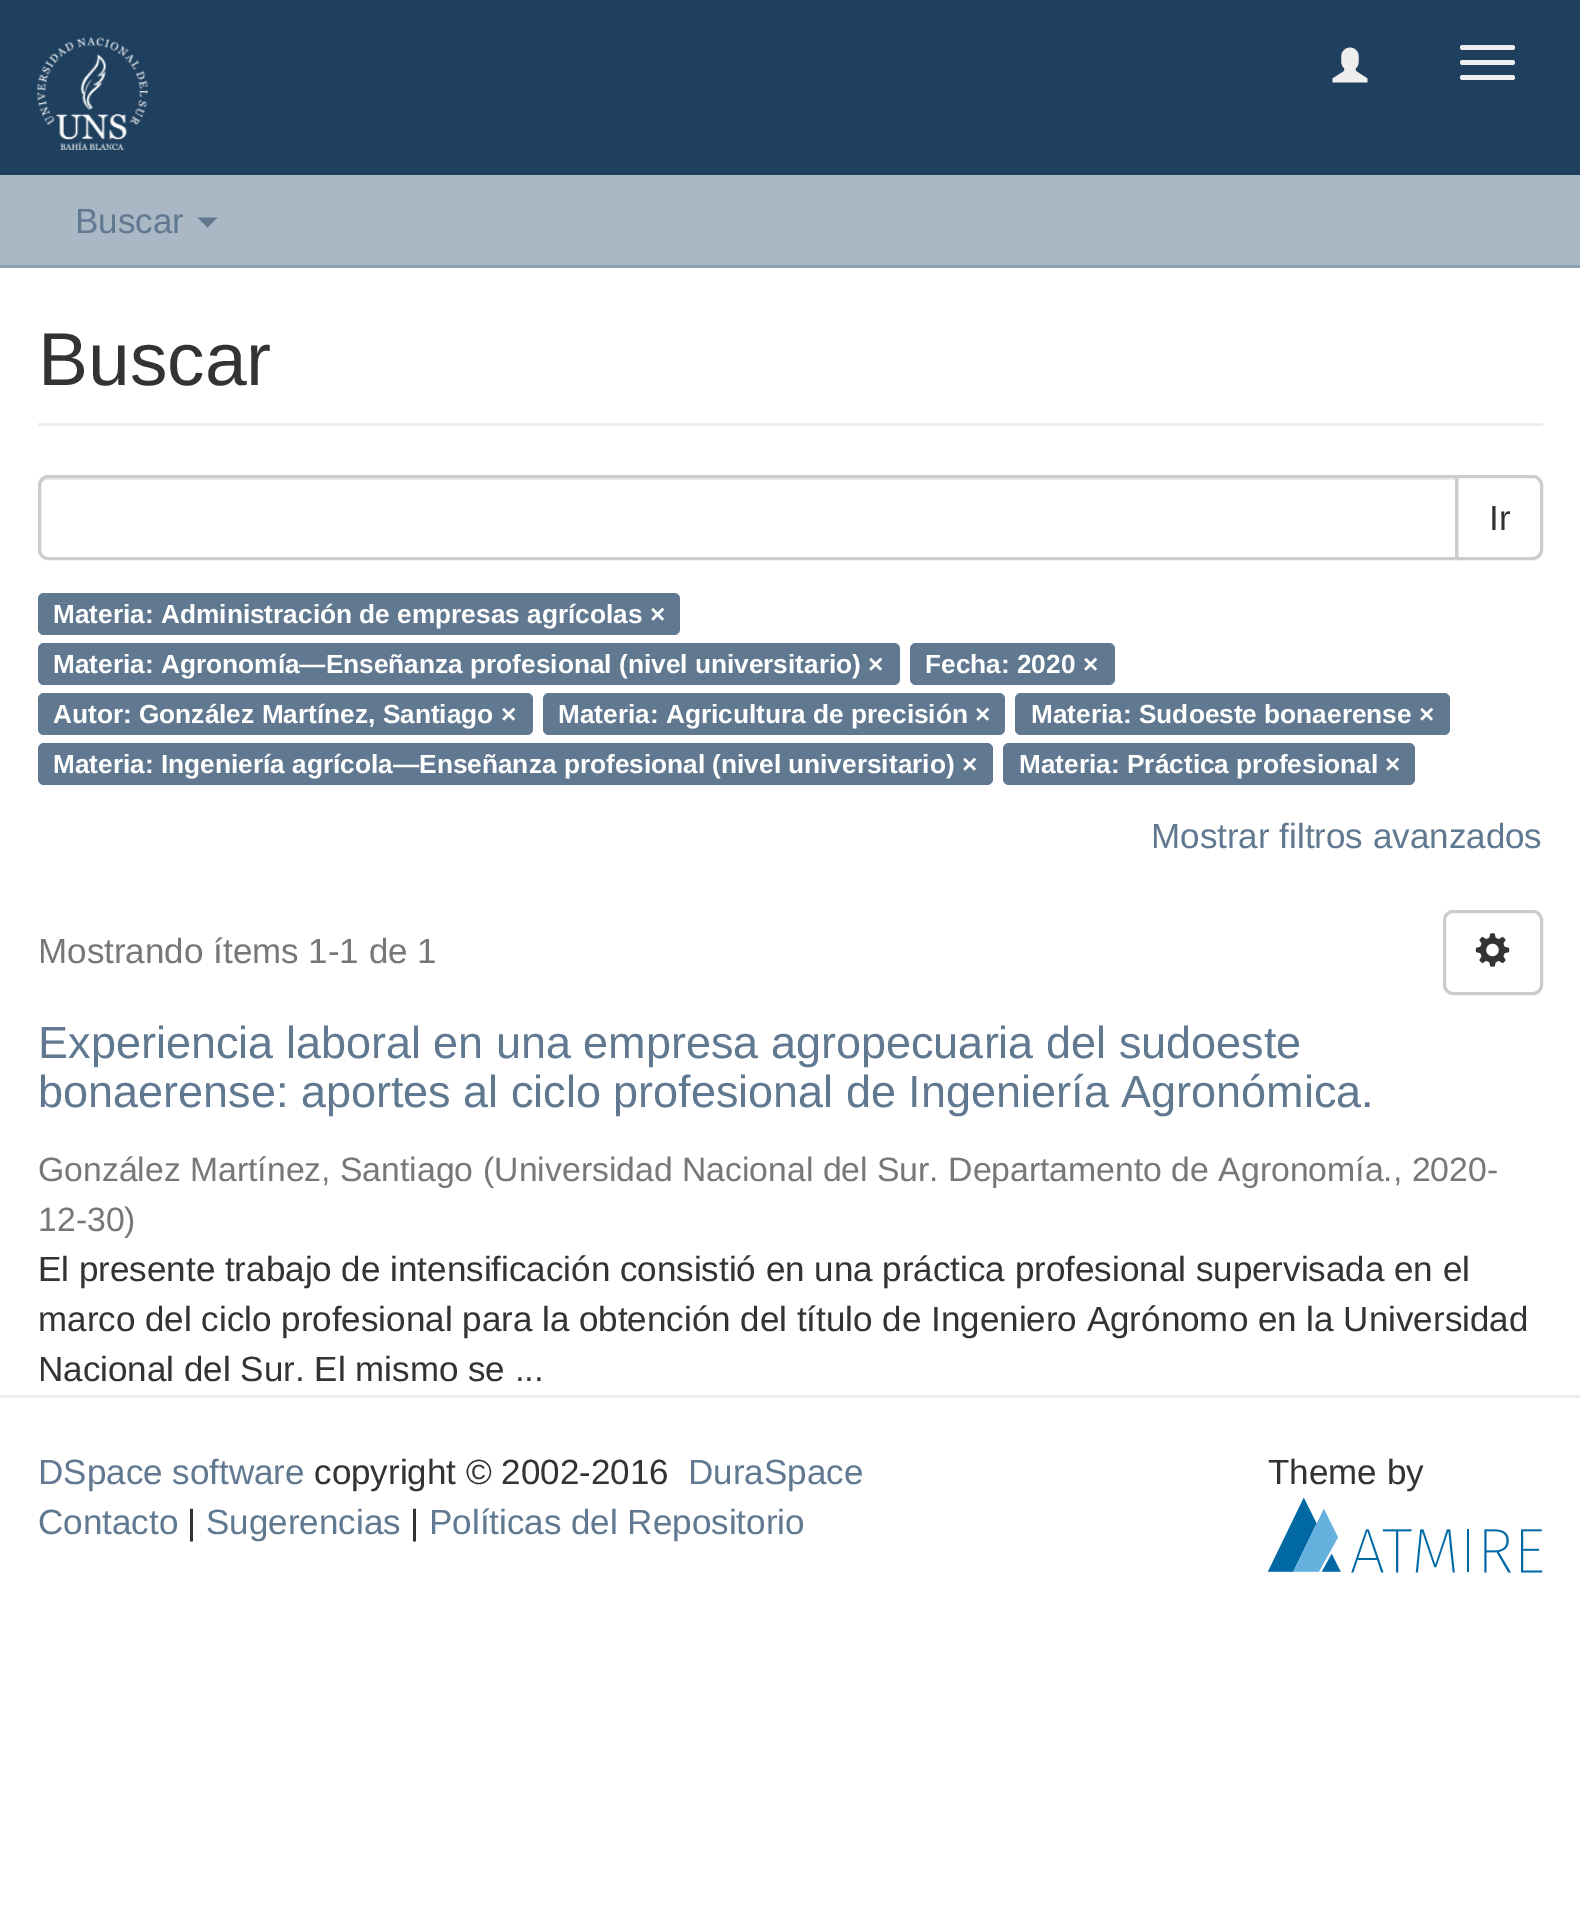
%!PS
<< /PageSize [1580 1920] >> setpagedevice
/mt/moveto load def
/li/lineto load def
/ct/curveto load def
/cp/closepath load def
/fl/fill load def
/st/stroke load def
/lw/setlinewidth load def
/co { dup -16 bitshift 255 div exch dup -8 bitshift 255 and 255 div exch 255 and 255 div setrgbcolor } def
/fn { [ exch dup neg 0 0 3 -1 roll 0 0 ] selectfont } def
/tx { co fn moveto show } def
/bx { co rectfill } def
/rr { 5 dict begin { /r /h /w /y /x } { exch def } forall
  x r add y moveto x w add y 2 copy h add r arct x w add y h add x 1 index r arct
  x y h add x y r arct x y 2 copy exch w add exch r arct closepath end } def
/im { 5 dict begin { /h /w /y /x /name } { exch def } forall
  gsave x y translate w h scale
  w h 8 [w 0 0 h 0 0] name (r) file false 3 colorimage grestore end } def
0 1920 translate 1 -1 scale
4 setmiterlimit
0 0 1580 1920 16#FFFFFF bx
0 0 1580 175 16#1F3F5E bx
(media/1.raw) 37 37 111 113 im
(media/2.raw) 1332 47 36 36 im
16#EEEEEE co
1460 45 55 5 2.5 rr fl
1460 60 55 5 2.5 rr fl
1460 75 55 5 2.5 rr fl
0 175 1580 90 16#AAB8C6 bx
0 265 1580 3 16#8B9EB2 bx
16#607890 co
197.5 217.5 mt 217.5 217.5 li 207.5 227.5 li cp fl
38 423 1505 3 16#EEEEEE bx
16#CCCCCC co
3 lw
1456.5 476.5 mt 1533 476.5 li 1537.5 476.5 1541.5 480.5 1541.5 485 ct 1541.5 550 li 1541.5 554.5 1537.5 558.5 1533 558.5 ct 1456.5 558.5 li cp st
16#FFFFFF co
48 475 mt 1458 475 li 1458 560 li 48 560 li 42.5 560 38 555.5 38 550 ct 38 485 li 38 479.5 42.5 475 48 475 ct cp fl
16#ECECEC co
48 480 mt 1455 480 li 1455 478 li 48 478 li 44 478 40 482 40 486 ct 40 488 li 40 483 43 480 48 480 ct cp fl
16#CCCCCC co
48 476.5 mt 1456.5 476.5 li 1456.5 558.5 li 48 558.5 li 43.5 558.5 39.5 554.5 39.5 550 ct 39.5 485 li 39.5 480.5 43.5 476.5 48 476.5 ct cp st
16#607890 co
38 593 642 42 6 rr fl
38 643 862 42 6 rr fl
910 643 205 42 6 rr fl
38 693 495 42 6 rr fl
543 693 462 42 6 rr fl
1015 693 435 42 6 rr fl
38 743 955 42 6 rr fl
1003 743 412 42 6 rr fl
16#CCCCCC co
1444.5 911.5 97 82 8.5 rr st
(media/3.raw) 1475 933 35 34 im
0 1395 1580 3 16#EEEEEE bx
(media/4.raw) 1268 1498 275 75 im
(Buscar) 75 233 /LiberationSans-Regular 35 16#607890 tx
(Buscar) 38 385 /LiberationSans-Regular 75 16#333333 tx
(Ir) 1489 530 /LiberationSans-Regular 35 16#333333 tx
(Materia: Administración de empresas agrícolas ×) 53 623 /LiberationSans-Bold 26.25 16#FFFFFF tx
(Materia: Agronomía—Enseñanza profesional \(nivel universitario\) ×) 53 673 /LiberationSans-Bold 26.25 16#FFFFFF tx
(Fecha: 2020 ×) 925 673 /LiberationSans-Bold 26.25 16#FFFFFF tx
(Autor: González Martínez, Santiago ×) 53 723 /LiberationSans-Bold 26.25 16#FFFFFF tx
(Materia: Agricultura de precisión ×) 558 723 /LiberationSans-Bold 26.25 16#FFFFFF tx
(Materia: Sudoeste bonaerense ×) 1031 723 /LiberationSans-Bold 26.25 16#FFFFFF tx
(Materia: Ingeniería agrícola—Enseñanza profesional \(nivel universitario\) ×) 53 773 /LiberationSans-Bold 26.25 16#FFFFFF tx
(Materia: Práctica profesional ×) 1019 773 /LiberationSans-Bold 26.25 16#FFFFFF tx
(Mostrar filtros avanzados) 1151 848 /LiberationSans-Regular 35 16#607890 tx
(Mostrando ítems 1-1 de 1) 38 963 /LiberationSans-Regular 35 16#777777 tx
(Experiencia laboral en una empresa agropecuaria del sudoeste) 38 1058 /LiberationSans-Regular 45 16#607890 tx
(bonaerense: aportes al ciclo profesional de Ingeniería Agronómica.) 38 1107 /LiberationSans-Regular 45 16#607890 tx
(González Martínez, Santiago) 38 1181 /LiberationSans-Regular 33.75 16#777777 tx
(\(Universidad Nacional del Sur. Departamento de Agronomía., 2020-) 483 1181 /LiberationSans-Regular 33.75 16#777777 tx
(12-30\)) 38 1231 /LiberationSans-Regular 33.75 16#777777 tx
(El presente trabajo de intensificación consistió en una práctica profesional supervisada en el) 38 1281 /LiberationSans-Regular 35 16#333333 tx
(marco del ciclo profesional para la obtención del título de Ingeniero Agrónomo en la Universidad) 38 1331 /LiberationSans-Regular 35 16#333333 tx
(Nacional del Sur. El mismo se ...) 38 1381 /LiberationSans-Regular 35 16#333333 tx
(DSpace software) 38 1484 /LiberationSans-Regular 35 16#607890 tx
(copyright © 2002-2016) 314 1484 /LiberationSans-Regular 35 16#333333 tx
(DuraSpace) 688 1484 /LiberationSans-Regular 35 16#607890 tx
(Contacto) 38 1534 /LiberationSans-Regular 35 16#607890 tx
(|) 187 1534 /LiberationSans-Regular 35 16#333333 tx
(Sugerencias) 206 1534 /LiberationSans-Regular 35 16#607890 tx
(|) 410 1534 /LiberationSans-Regular 35 16#333333 tx
(Políticas del Repositorio) 429 1534 /LiberationSans-Regular 35 16#607890 tx
(Theme by) 1268 1484 /LiberationSans-Regular 35 16#333333 tx
showpage
